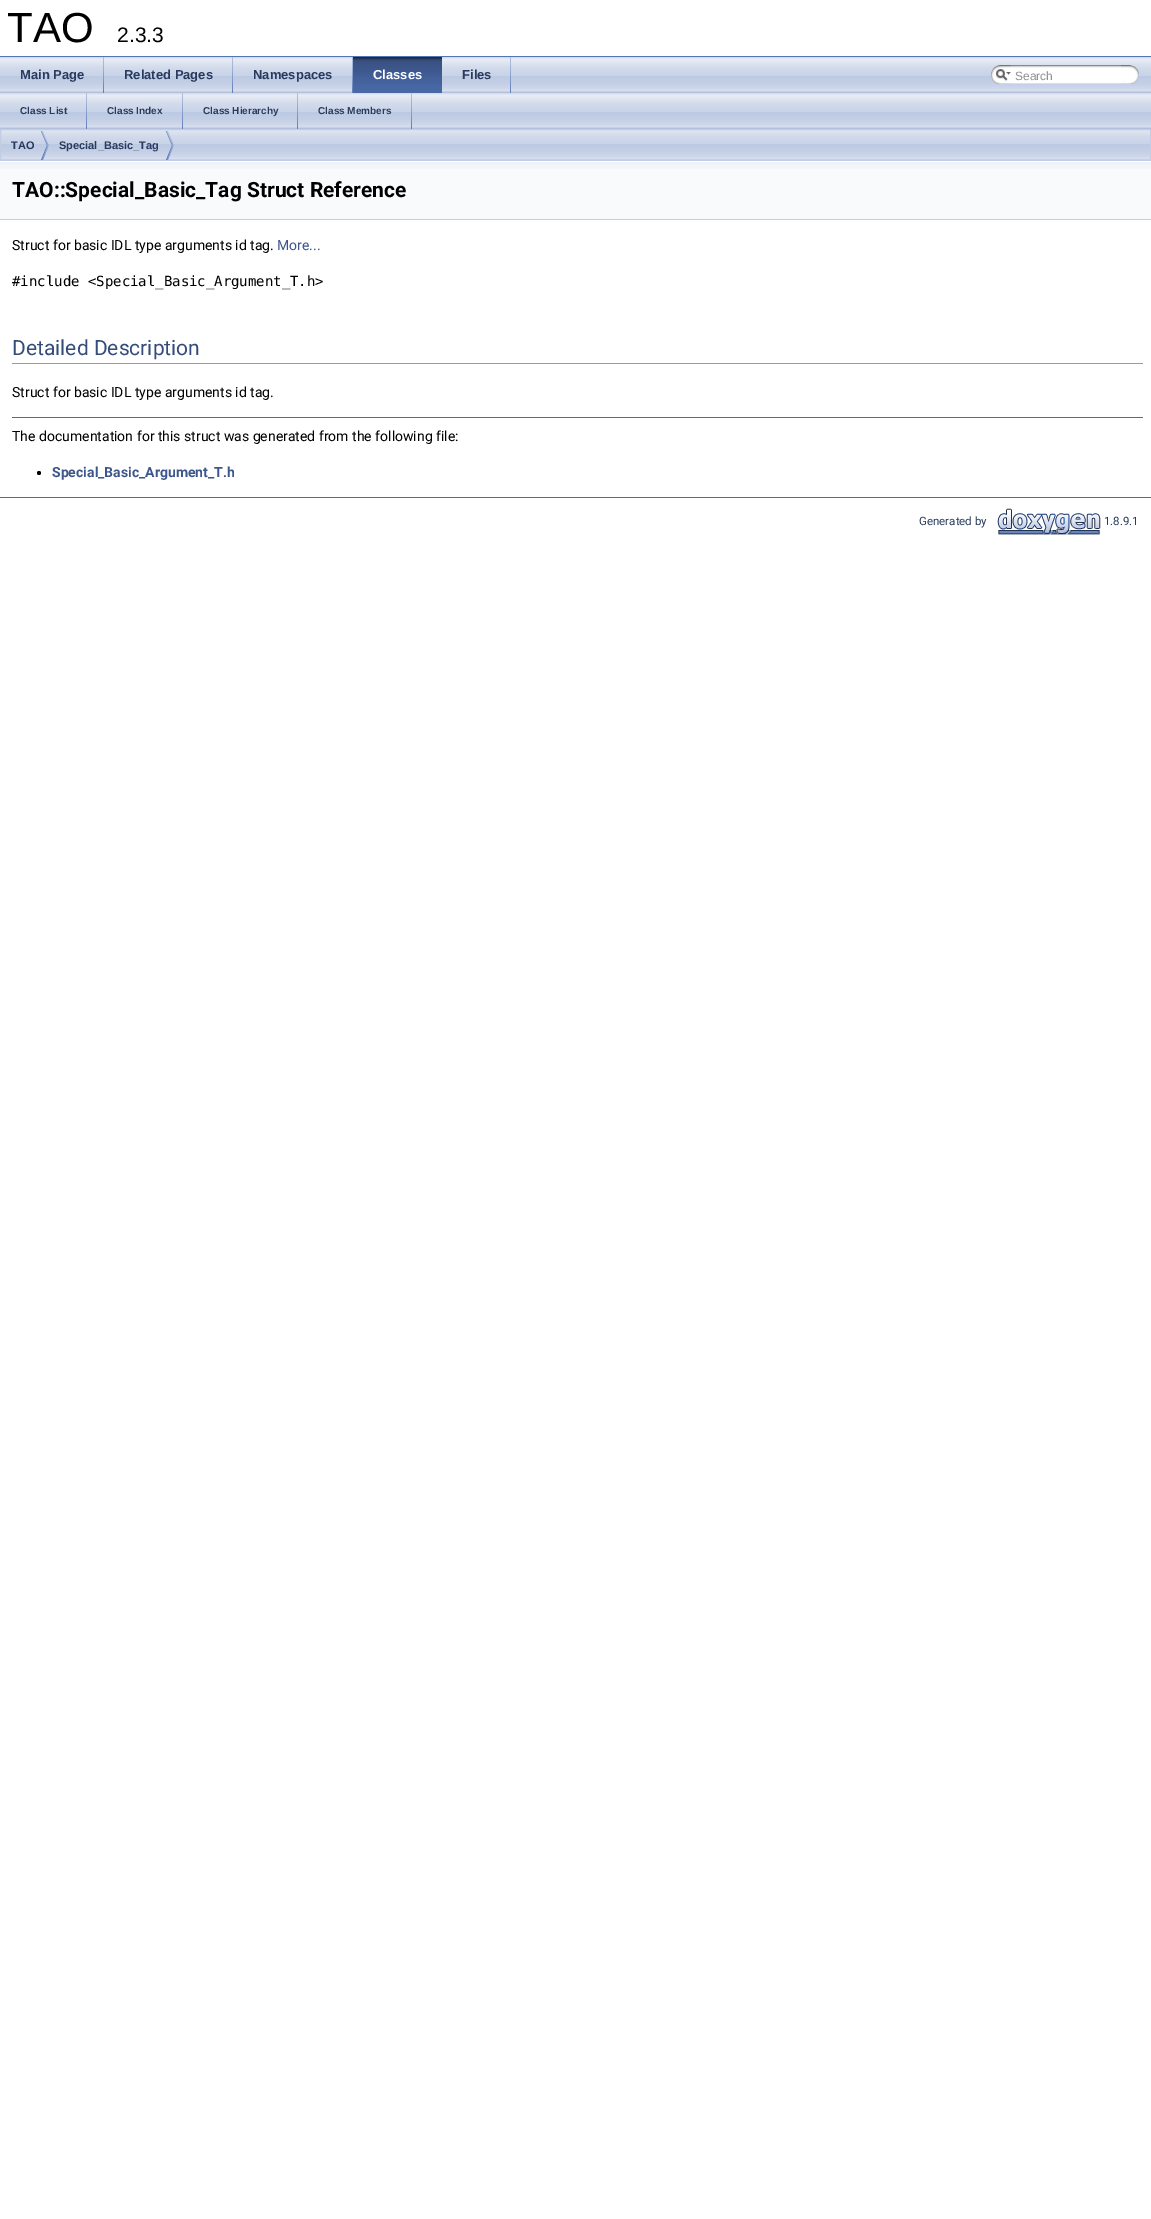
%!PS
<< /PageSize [1151 2219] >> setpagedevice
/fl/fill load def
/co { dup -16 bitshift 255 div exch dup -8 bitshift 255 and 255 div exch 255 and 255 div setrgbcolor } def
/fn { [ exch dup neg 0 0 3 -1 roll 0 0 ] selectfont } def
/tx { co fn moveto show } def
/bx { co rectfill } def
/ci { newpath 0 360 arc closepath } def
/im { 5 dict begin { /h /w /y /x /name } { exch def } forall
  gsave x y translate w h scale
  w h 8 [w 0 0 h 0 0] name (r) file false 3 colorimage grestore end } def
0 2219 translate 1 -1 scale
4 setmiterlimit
0 0 1151 2219 16#FFFFFF bx
0 56 1151 1 16#5373B4 bx
(media/1.raw) 0 57 1151 36 im
(media/2.raw) 103 57 1 36 im
(media/2.raw) 232 57 1 36 im
(media/2.raw) 352 57 1 36 im
(media/3.raw) 353 57 89 36 im
(media/2.raw) 510 57 1 36 im
(media/4.raw) 991 65 20 19 im
(media/5.raw) 996 69 15 12 im
(media/6.raw) 1011 65 110 19 im
(media/7.raw) 1121 65 18 19 im
(media/1.raw) 0 93 1151 36 im
(media/2.raw) 86 93 1 36 im
(media/2.raw) 182 93 1 36 im
(media/2.raw) 297 93 1 36 im
(media/2.raw) 411 93 1 36 im
(media/8.raw) 1 130 1149 30 im
16#C2CDE4 co
.5 129.5 1150 31 rectstroke
(media/9.raw) 41 131 8 29 im
(media/9.raw) 166 131 8 29 im
0 169 1151 50 16#F9FAFC bx
(media/10.raw) 0 161 1151 8 im
0 219 1151 1 16#C4CFE5 bx
12 363 1131 1 16#879ECB bx
12 417 1131 1 16#4A6AAA bx
16#000000 co
39 473 2 ci fl
0 497 1151 1 16#4A6AAA bx
(media/11.raw) 997 508 104 27 im
(TAO) 7 42 /LiberationSans-Regular 42 16#000000 tx
(2.3.3) 117 42 /LiberationSans-Regular 21 16#000000 tx
(Main Page) 20 79 /LiberationSans-Bold 13 16#283A5D tx
(Related Pages) 124 79 /LiberationSans-Bold 13 16#283A5D tx
(Namespaces) 253 79 /LiberationSans-Bold 13 16#283A5D tx
(Classes) 373 79 /LiberationSans-Bold 13 16#FFFFFF tx
(Files) 462 79 /LiberationSans-Bold 13 16#283A5D tx
(Search) 1015 80 /LiberationSans-Regular 12 16#909090 tx
(Class List) 20 114 /LiberationSans-Bold 10 16#283A5D tx
(Class Index) 107 114 /LiberationSans-Bold 10 16#283A5D tx
(Class Hierarchy) 203 114 /LiberationSans-Bold 10 16#283A5D tx
(Class Members) 318 114 /LiberationSans-Bold 10 16#283A5D tx
(TAO) 11 149 /LiberationSans-Bold 11 16#283A5D tx
(Special_Basic_Tag) 59 149 /LiberationSans-Bold 11 16#283A5D tx
(TAO::Special_Basic_Tag Struct Reference) 12 197 /Roboto-Bold 21 16#000000 tx
(Struct for basic IDL type arguments id tag.) 12 250 /Roboto-Regular 14 16#000000 tx
(More...) 277 250 /Roboto-Regular 14 16#3D578C tx
(#include <Special_Basic_Argument_T.h>) 12 286 /DejaVuSansMono-Regular 14 16#000000 tx
(Detailed Description) 12 355 /Roboto-Regular 21 16#354C7B tx
(Struct for basic IDL type arguments id tag.) 12 397 /Roboto-Regular 14 16#000000 tx
(The documentation for this struct was generated from the following file:) 12 441 /Roboto-Regular 14 16#000000 tx
(Special_Basic_Argument_T.h) 52 477 /Roboto-Bold 14 16#3D578C tx
(Generated by) 919 525 /Roboto-Regular 11.5 16#283A5D tx
(1.8.9.1) 1104 525 /Roboto-Regular 11.5 16#283A5D tx
showpage
